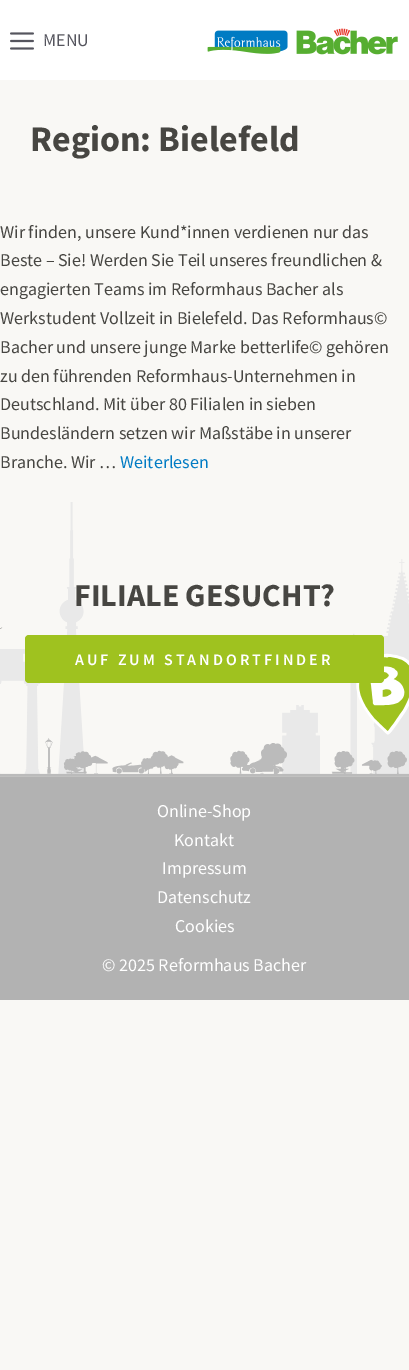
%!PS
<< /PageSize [409 1370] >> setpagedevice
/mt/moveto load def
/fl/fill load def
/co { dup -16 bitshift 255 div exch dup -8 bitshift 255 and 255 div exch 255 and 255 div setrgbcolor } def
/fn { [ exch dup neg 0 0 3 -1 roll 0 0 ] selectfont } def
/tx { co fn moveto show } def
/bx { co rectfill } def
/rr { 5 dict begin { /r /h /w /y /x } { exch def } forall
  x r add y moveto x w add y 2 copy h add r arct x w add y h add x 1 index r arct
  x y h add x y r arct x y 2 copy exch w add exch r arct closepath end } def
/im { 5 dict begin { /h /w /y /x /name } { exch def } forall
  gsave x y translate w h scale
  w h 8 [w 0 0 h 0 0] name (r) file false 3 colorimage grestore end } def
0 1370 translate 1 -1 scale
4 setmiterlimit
0 0 409 1370 16#F9F8F5 bx
0 0 409 80 16#FFFFFF bx
(media/1.raw) 10 32 24 18 im
(media/2.raw) 207 28 191 27 im
(media/3.raw) 0 502 409 275 im
16#9FC21F co
25 635 359 48 4 rr fl
0 777 409 223 16#B2B2B2 bx
(MENU) 43 46 /SourceSansPro-Regular 18 16#55555E tx
(Region: Bielefeld) 30 151 /SourceSansPro-Bold 36 16#474642 tx
(Wir finden, unsere Kund*innen verdienen nur das) 0 238 /SourceSansPro-Regular 18 16#474642 tx
(Beste – Sie! Werden Sie Teil unseres freundlichen &) 0 266 /SourceSansPro-Regular 18 16#474642 tx
(engagierten Teams im Reformhaus Bacher als) 0 295 /SourceSansPro-Regular 18 16#474642 tx
(Werkstudent Vollzeit in Bielefeld. Das Reformhaus©) 0 324 /SourceSansPro-Regular 18 16#474642 tx
(Bacher und unsere junge Marke betterlife© gehören) 0 353 /SourceSansPro-Regular 18 16#474642 tx
(zu den führenden Reformhaus-Unternehmen in) 0 382 /SourceSansPro-Regular 18 16#474642 tx
(Deutschland. Mit über 80 Filialen in sieben) 0 410 /SourceSansPro-Regular 18 16#474642 tx
(Bundesländern setzen wir Maßstäbe in unserer) 0 439 /SourceSansPro-Regular 18 16#474642 tx
(Branche. Wir …) 0 468 /SourceSansPro-Regular 18 16#474642 tx
(Weiterlesen) 120 468 /SourceSansPro-Regular 18 16#007BC4 tx
(FILIALE GESUCHT?) 74 606 /SourceSansPro-Bold 32 16#474642 tx
/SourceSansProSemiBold-SemiBold 16 fn
16#FFFFFF co
75 665 mt 3 0 (AUF ZUM STANDORTFINDER) ashow
(Online-Shop) 157 817 /SourceSansPro-Regular 18 16#FFFFFF tx
(Kontakt) 174 846 /SourceSansPro-Regular 18 16#FFFFFF tx
(Impressum) 162 874 /SourceSansPro-Regular 18 16#FFFFFF tx
(Datenschutz) 157 903 /SourceSansPro-Regular 18 16#FFFFFF tx
(Cookies) 175 932 /SourceSansPro-Regular 18 16#FFFFFF tx
(© 2025 Reformhaus Bacher) 102 971 /SourceSansPro-Regular 18 16#FFFFFF tx
showpage
